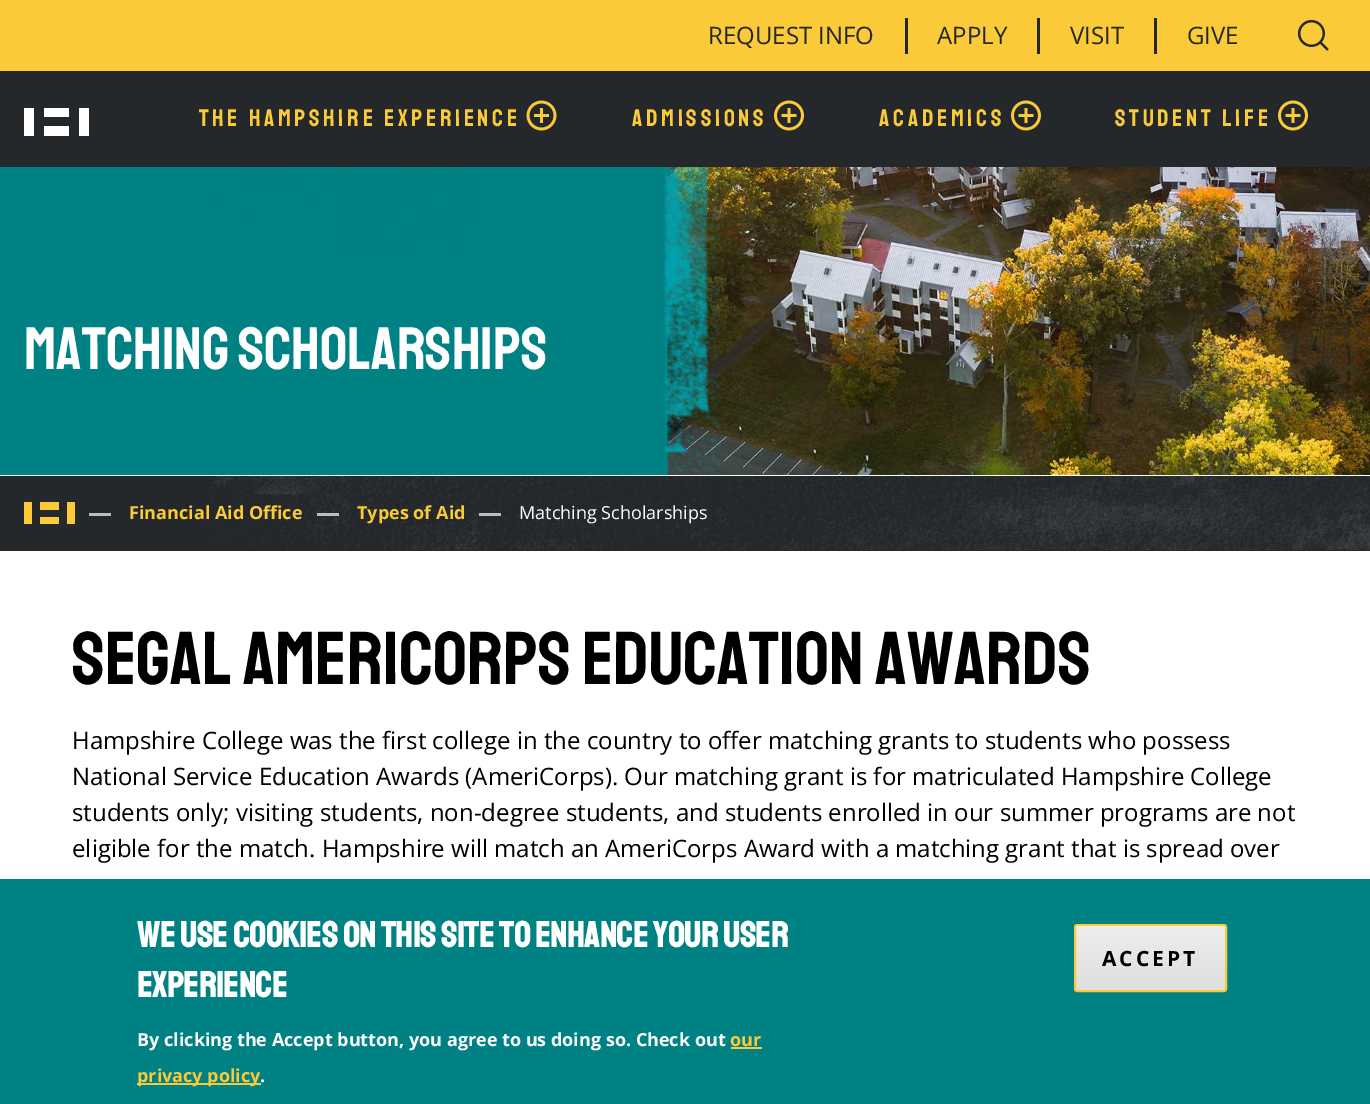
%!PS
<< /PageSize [1370 1104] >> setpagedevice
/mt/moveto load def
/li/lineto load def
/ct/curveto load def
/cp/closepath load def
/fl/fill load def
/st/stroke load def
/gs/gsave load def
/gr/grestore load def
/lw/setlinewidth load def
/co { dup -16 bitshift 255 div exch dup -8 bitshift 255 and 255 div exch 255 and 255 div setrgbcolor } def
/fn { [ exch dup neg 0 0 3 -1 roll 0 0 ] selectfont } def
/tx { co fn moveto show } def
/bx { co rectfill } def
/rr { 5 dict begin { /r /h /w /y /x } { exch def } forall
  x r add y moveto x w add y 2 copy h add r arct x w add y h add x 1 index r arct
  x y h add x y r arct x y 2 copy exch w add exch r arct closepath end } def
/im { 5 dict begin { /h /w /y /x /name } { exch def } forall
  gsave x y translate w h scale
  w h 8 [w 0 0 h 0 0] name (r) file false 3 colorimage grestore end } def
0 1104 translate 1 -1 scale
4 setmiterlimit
0 0 1370 1104 16#FFFFFF bx
0 71 1370 96 16#25282A bx
0 0 1370 71 16#FACA39 bx
905 18 3 36 16#25282A bx
1037 18 3 36 16#25282A bx
1154 18 3 36 16#25282A bx
(media/1.raw) 1297 19 32 32 im
24 108 10 28 16#FFFFFF bx
79 108 10 28 16#FFFFFF bx
44 108 25 9 16#FFFFFF bx
44 126 25 10 16#FFFFFF bx
(media/2.raw) 526 100 31 31 im
(media/3.raw) 774 100 30 31 im
(media/3.raw) 1011 100 30 31 im
(media/3.raw) 1278 100 30 31 im
(media/5.raw) 665 167 705 308 im
(media/4.raw) 0 167 720 308 im
0 476 1370 75 16#25282A bx
(media/6.raw) 207 475 1163 75 im
24 502 8 22 16#FACA39 bx
67 502 8 22 16#FACA39 bx
40 502 19 8 16#FACA39 bx
40 517 19 7 16#FACA39 bx
89 513 22 3 16#BCBDC0 bx
317 513 22 3 16#BCBDC0 bx
479 513 22 3 16#BCBDC0 bx
0 879 1370 225 16#008285 bx
731 1047 31 2 16#FACA39 bx
137 1083 124 2 16#FACA39 bx
gs
1074 924 153 68 3 rr clip newpath
gs 1074 926 mt 1227 926 li 1227 990 li 1074 990 li cp clip newpath
<< /ShadingType 2 /ColorSpace /DeviceRGB /Coords [1151 926 1151 990] /Extend [true true] /Function << /FunctionType 3 /Domain [0 1] /Functions [<< /FunctionType 2 /Domain [0 1] /C0 [.929 .929 .929] /C1 [.929 .929 .929] /N 1 >> << /FunctionType 2 /Domain [0 1] /C0 [.929 .929 .929] /C1 [.875 .875 .875] /N 1 >>] /Bounds [.05] /Encode [0 1 0 1] >> >> shfill gr
gr
16#FFFFFF co
1077 927 mt 1224 927 li 1225 927 1226 928 1226 928 ct 1226 927 li 1225 926 li 1078 926 li 1076 926 1076 927 1076 928 ct cp fl
16#FACA39 co
2 lw
1075 925 151 66 2 rr st
(REQUEST INFO) 708 44 /OpenSans-Regular 24 16#25282A tx
(APPLY) 937 44 /OpenSans-Regular 24 16#25282A tx
(VISIT) 1070 44 /OpenSans-Regular 24 16#25282A tx
(GIVE) 1187 44 /OpenSans-Regular 24 16#25282A tx
/Staatliches-Regular 24 fn
16#FACA39 co
199 126 mt 3.75 0 (THE HAMPSHIRE EXPERIENCE) ashow
632 126 mt 3.75 0 (ADMISSIONS) ashow
879 126 mt 3.75 0 (ACADEMICS) ashow
1115 126 mt 3.75 0 (STUDENT LIFE) ashow
(Matching Scholarships) 24 369 /Staatliches-Regular 60 16#FFFFFF tx
(Financial Aid Office) 129 519 /OpenSans-Bold 18 16#FACA39 tx
(Types of Aid) 357 519 /OpenSans-Bold 18 16#FACA39 tx
(Matching Scholarships) 519 519 /OpenSans-Regular 18 16#FFFFFF tx
(Segal AmeriCorps Education Awards) 72 684 /Staatliches-Regular 75 16#000000 tx
(Hampshire College was the first college in the country to offer matching grants to students who possess) 72 749 /OpenSans-Regular 24 16#000000 tx
(National Service Education Awards \(AmeriCorps\). Our matching grant is for matriculated Hampshire College) 72 785 /OpenSans-Regular 24 16#000000 tx
(students only; visiting students, non-degree students, and students enrolled in our summer programs are not) 72 821 /OpenSans-Regular 24 16#000000 tx
(eligible for the match. Hampshire will match an AmeriCorps Award with a matching grant that is spread over) 72 857 /OpenSans-Regular 24 16#000000 tx
(We use cookies on this site to enhance your user) 137 947 /Staatliches-Bold 36 16#FFFFFF tx
(experience) 137 997 /Staatliches-Bold 36 16#FFFFFF tx
(By clicking the Accept button, you agree to us doing so. Check out) 137 1046 /OpenSans-Bold 18 16#FFFFFF tx
(our) 730 1046 /OpenSans-Bold 18 16#FACA39 tx
(privacy policy) 137 1082 /OpenSans-Bold 18 16#FACA39 tx
(.) 260 1082 /OpenSans-Bold 18 16#FFFFFF tx
/OpenSans-Bold 21 fn
16#000000 co
1102 966 mt 3 0 (ACCEPT) ashow
showpage
